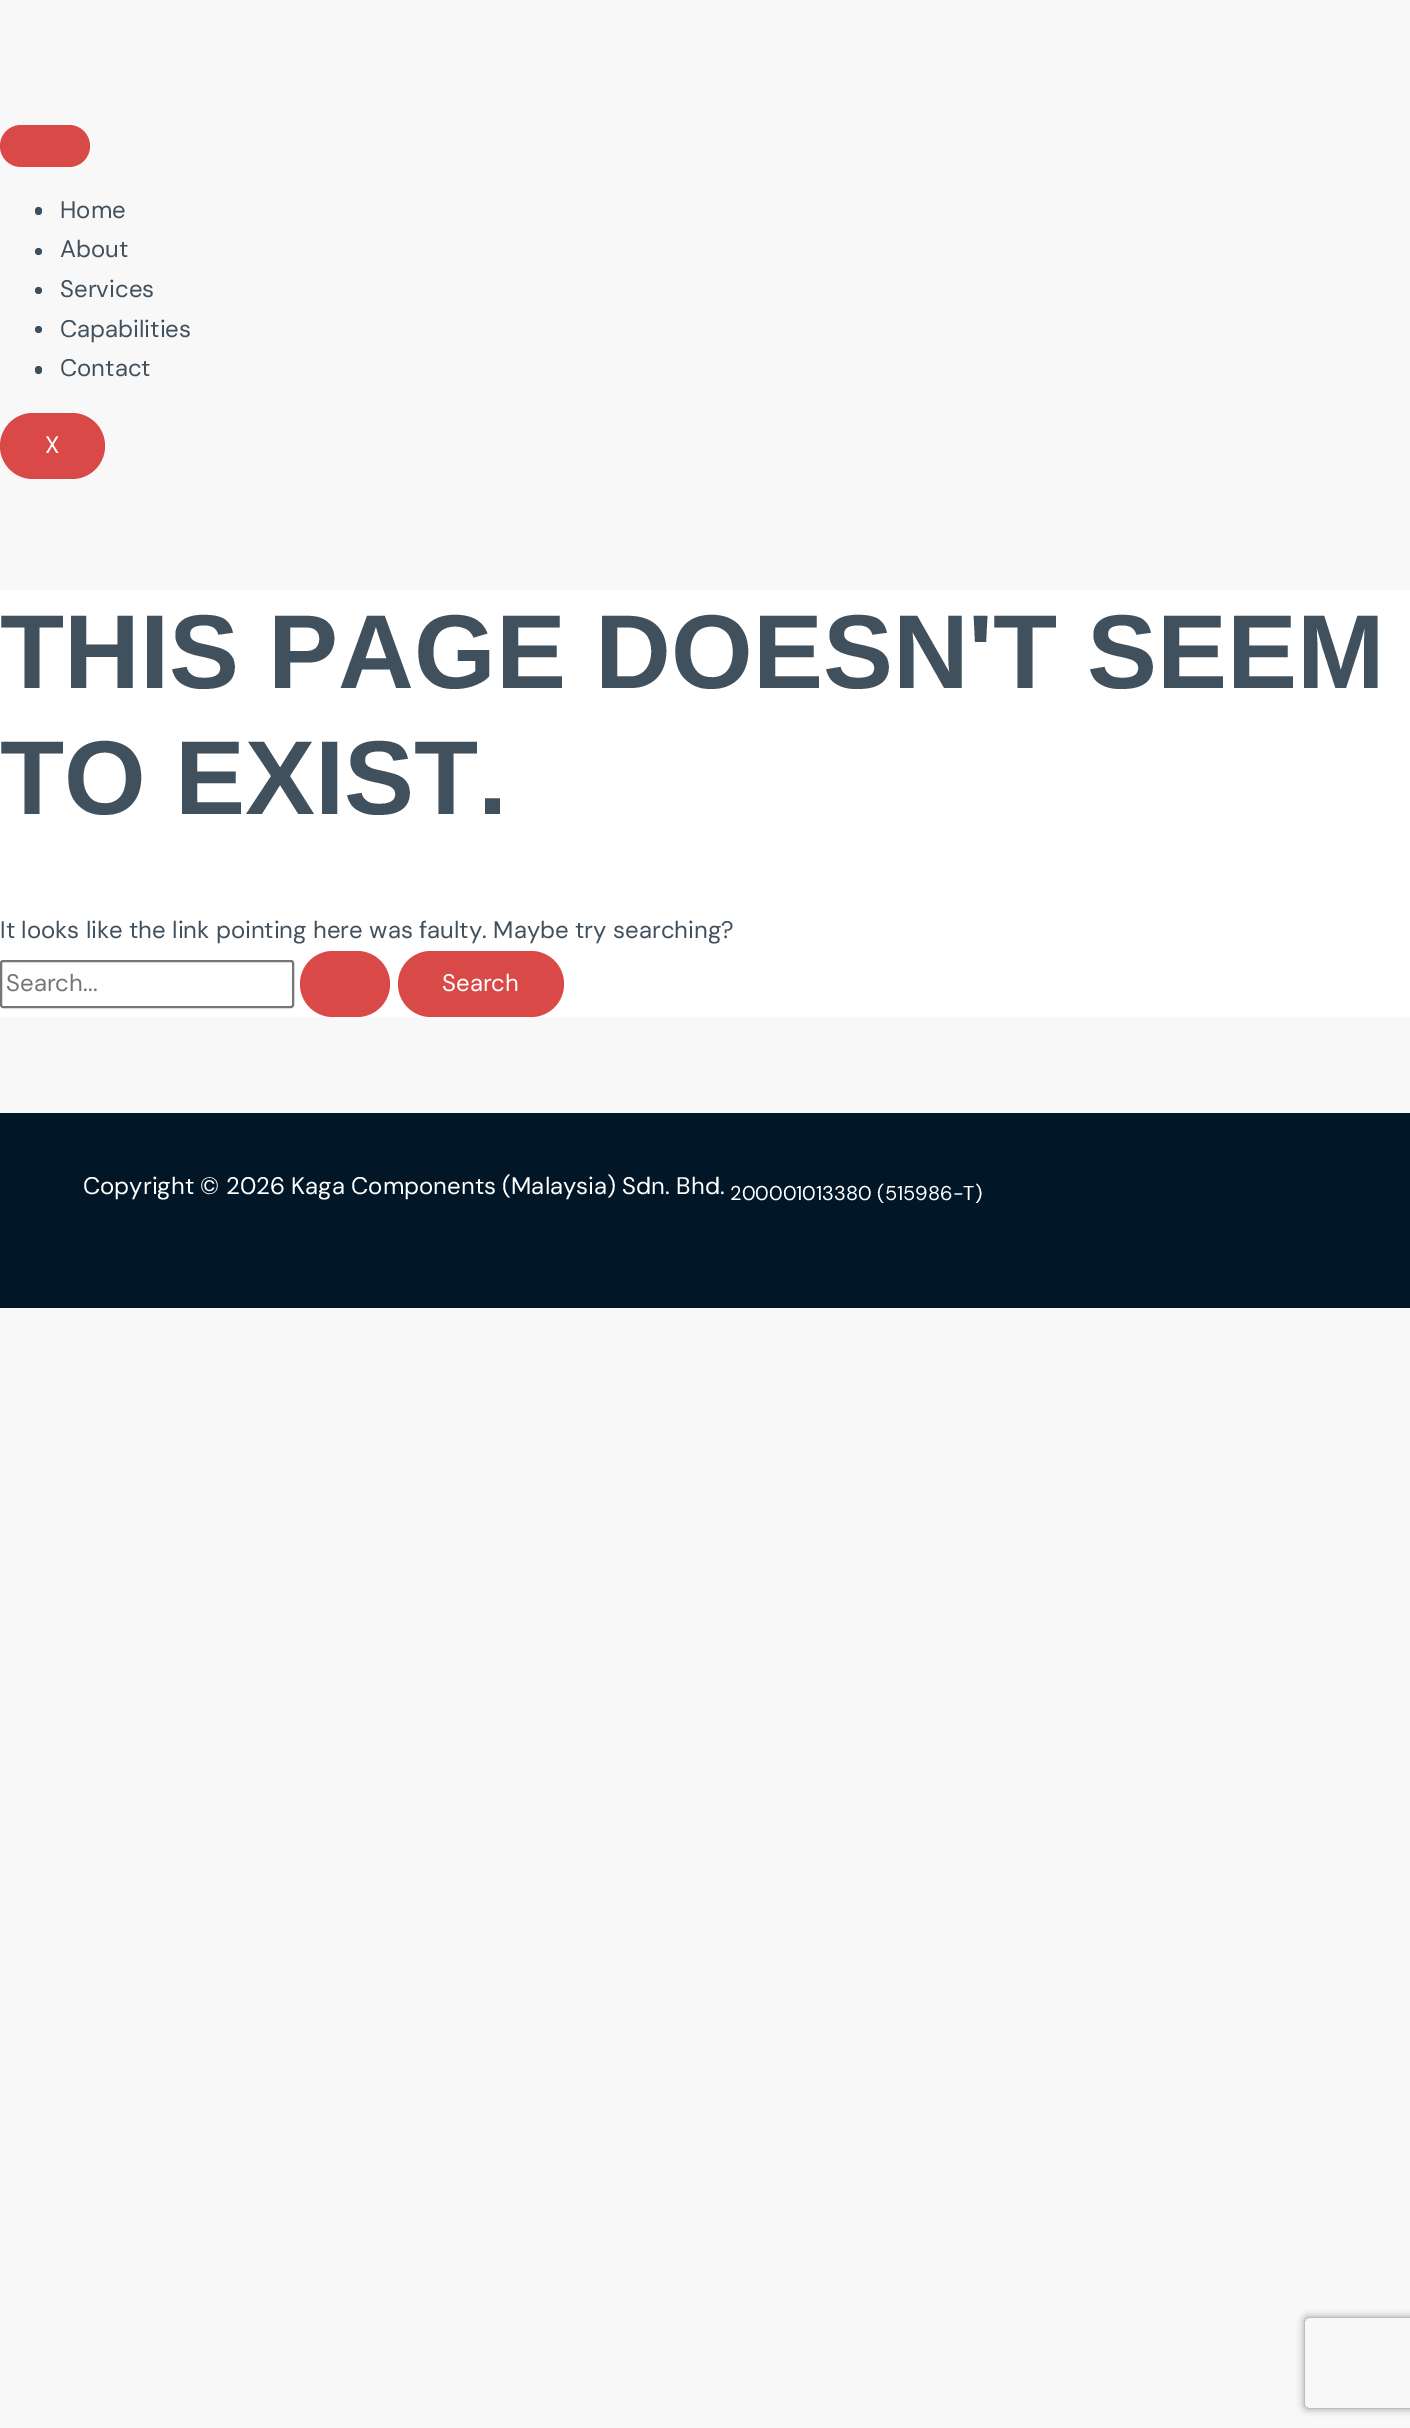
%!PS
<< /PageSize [1410 2428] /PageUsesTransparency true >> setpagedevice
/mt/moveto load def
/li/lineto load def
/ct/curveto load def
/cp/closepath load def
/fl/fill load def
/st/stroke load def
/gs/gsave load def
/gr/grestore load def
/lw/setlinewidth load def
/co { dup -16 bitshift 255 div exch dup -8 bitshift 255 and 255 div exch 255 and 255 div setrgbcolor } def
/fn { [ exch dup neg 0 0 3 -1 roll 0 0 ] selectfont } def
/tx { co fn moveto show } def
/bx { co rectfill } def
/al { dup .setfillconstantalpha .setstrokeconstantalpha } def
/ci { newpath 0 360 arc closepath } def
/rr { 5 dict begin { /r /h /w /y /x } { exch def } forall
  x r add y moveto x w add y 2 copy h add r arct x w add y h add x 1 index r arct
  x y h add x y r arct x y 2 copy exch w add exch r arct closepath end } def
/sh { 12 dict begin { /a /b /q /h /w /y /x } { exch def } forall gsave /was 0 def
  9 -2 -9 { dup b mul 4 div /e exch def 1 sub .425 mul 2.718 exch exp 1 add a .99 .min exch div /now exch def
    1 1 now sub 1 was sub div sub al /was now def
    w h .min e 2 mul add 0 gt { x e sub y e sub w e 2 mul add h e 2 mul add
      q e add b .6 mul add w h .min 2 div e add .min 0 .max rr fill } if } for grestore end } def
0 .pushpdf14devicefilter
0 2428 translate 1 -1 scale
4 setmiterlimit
0 0 1410 2428 16#F9F8F8 bx
16#D94948 co
0 125 90 42 21 rr fl
16#3F4F5B co
35 207 7 8 3.5 rr fl
38.5 251.5 3.5 ci fl
38.5 290.5 3.5 ci fl
38.5 329.5 3.5 ci fl
35 366 7 8 3.5 rr fl
16#D94948 co
0 413 105 66 33 rr fl
0 590 1410 427 16#FFFFFF bx
16#767676 co
2 lw
1 961 292 46 2 rr st
16#D94948 co
300 951 90 66 33 rr fl
398 951 166 66 33 rr fl
0 1113 1410 195 16#011627 bx
gs
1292 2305 mt 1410 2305 li 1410 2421 li 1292 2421 li cp 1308 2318 mt 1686 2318 li 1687.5 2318 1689 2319.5 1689 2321 ct 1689 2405 li 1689 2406.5 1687.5 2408 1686 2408 ct 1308 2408 li 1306.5 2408 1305 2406.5 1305 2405 ct 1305 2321 li 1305 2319.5 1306.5 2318 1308 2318 ct cp eoclip newpath
16#808080 co
1305 2318 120 90 3 4 1 sh
gr
(Home) 60 218 /DMSans-Regular 24 16#41505D tx
(About) 60 257 /DMSans-Regular 24 16#41505D tx
(Services) 60 297 /DMSans-Regular 24 16#41505D tx
(Capabilities) 60 337 /DMSans-Regular 24 16#41505D tx
(Contact) 60 376 /DMSans-Regular 24 16#41505D tx
(X) 45 453 /DMSans-Regular 24 16#FFFFFF tx
(THIS PAGE DOESN'T SEEM) 0 688 /LiberationSans-Bold 105 16#41505D tx
(TO EXIST.) 0 814 /LiberationSans-Bold 105 16#41505D tx
(It looks like the link pointing here was faulty. Maybe try searching?) 0 938 /DMSans-Regular 24 16#41505D tx
(Search...) 6 991 /DMSans-Regular 24 16#757575 tx
(Search) 442 991 /DMSans-Regular 24 16#FFFFFF tx
(Copyright © 2026 Kaga Components \(Malaysia\) Sdn. Bhd.) 83 1194 /DMSans-Regular 24 16#FFFFFF tx
(200001013380 \(515986-T\)) 730 1200 /DMSans-Regular 20 16#FFFFFF tx
.poppdf14devicefilter showpage
